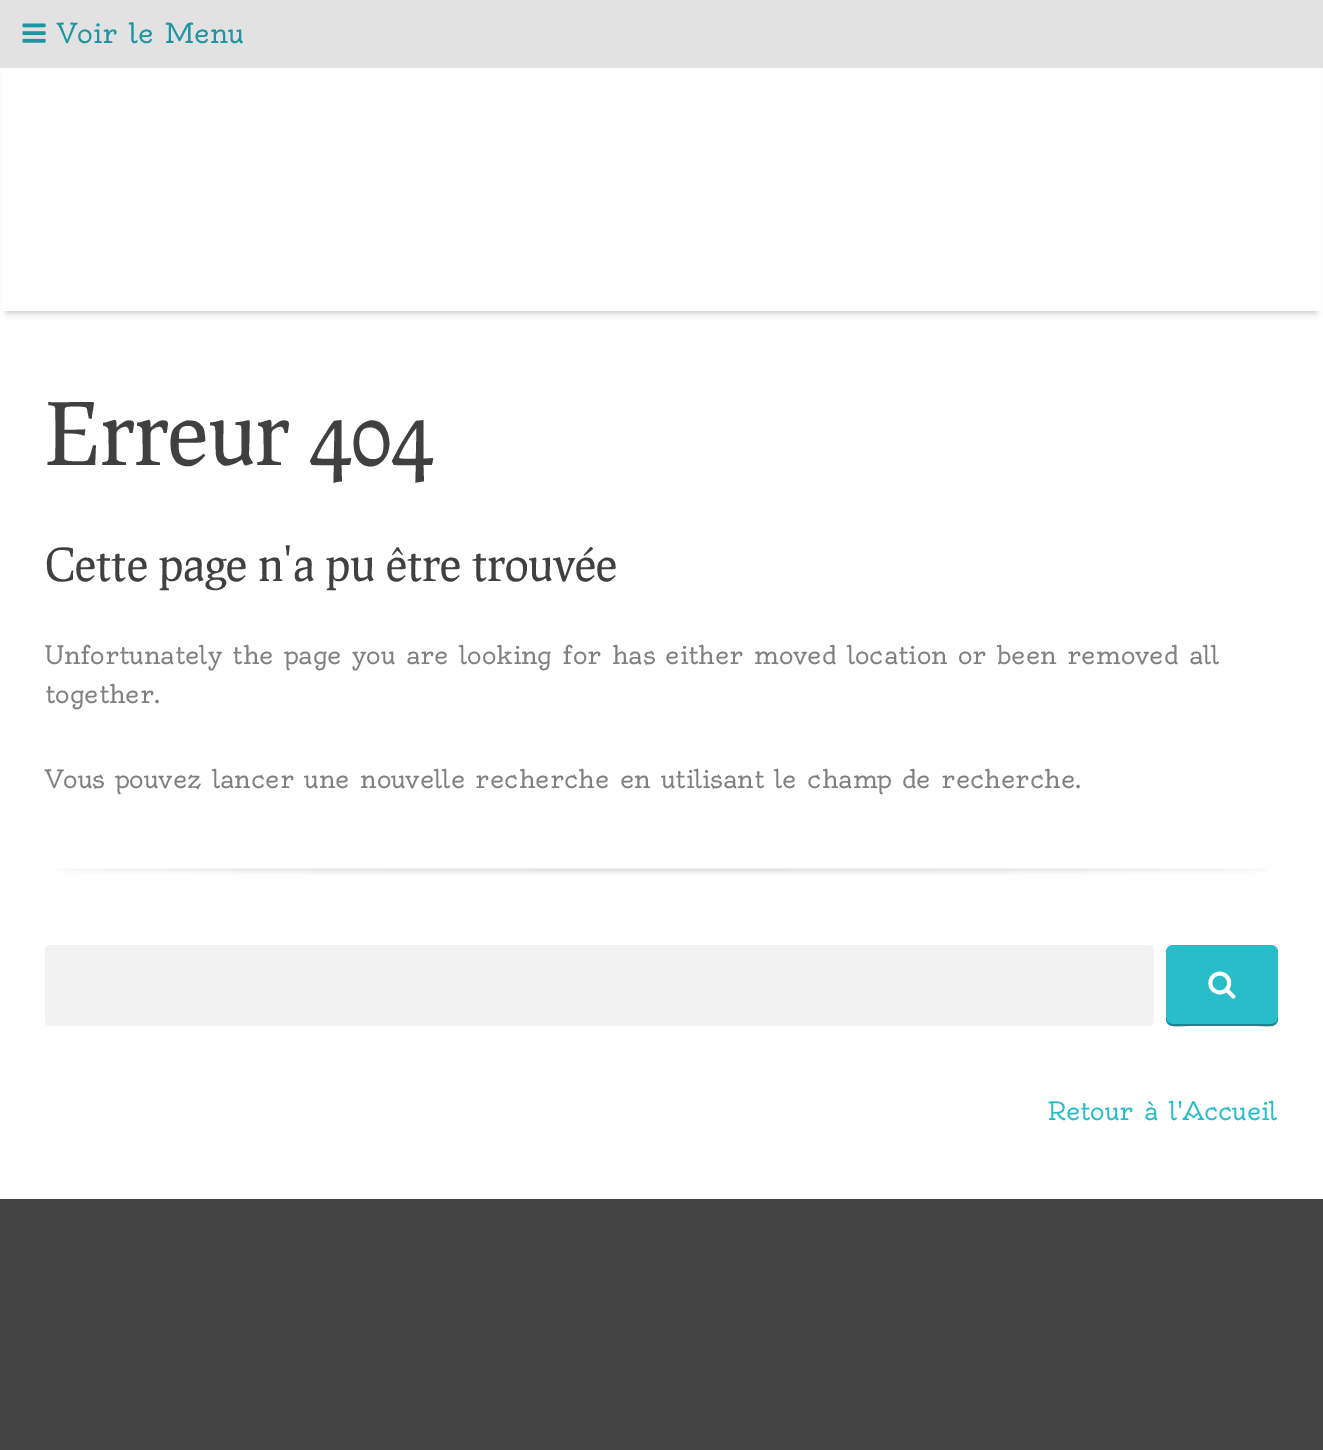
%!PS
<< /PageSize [1323 1450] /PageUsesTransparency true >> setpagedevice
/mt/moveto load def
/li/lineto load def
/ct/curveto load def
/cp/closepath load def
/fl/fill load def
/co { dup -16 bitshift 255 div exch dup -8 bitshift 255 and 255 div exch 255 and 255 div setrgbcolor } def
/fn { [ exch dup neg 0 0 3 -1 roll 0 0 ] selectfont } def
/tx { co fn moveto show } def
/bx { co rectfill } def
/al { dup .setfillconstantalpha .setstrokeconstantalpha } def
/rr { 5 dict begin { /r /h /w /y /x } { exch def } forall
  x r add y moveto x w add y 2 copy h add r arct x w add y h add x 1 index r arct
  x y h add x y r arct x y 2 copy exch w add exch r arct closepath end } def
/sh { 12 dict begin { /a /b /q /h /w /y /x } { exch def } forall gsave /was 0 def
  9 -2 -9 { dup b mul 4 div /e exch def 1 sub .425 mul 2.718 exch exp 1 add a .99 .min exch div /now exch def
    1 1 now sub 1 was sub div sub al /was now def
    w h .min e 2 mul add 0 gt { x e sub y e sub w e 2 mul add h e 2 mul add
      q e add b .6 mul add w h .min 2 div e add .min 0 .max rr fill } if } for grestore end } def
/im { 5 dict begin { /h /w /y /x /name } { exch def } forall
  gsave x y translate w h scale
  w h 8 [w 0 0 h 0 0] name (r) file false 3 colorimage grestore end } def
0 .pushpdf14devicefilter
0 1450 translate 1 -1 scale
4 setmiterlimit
0 0 1323 1450 16#FFFFFF bx
16#000000 co
7 16 1309 297 0 3.5 .2 sh
0 0 1323 68 16#E2E2E2 bx
(media/1.raw) 22 23 24 20 im
1 68 1321 243 16#FFFFFF bx
(media/2.raw) 57 868 1209 7 im
16#F2F2F2 co
45 945 1109 81 5 rr fl
16#29BDCA co
1166 945 112 81 7 rr fl
0.3 al
16#000000 co
1166 1017 mt 1166 1030 1180 1026 1189 1026 ct 1255 1026 li 1264 1026 1278 1030 1278 1017 ct 1278 1021 1275 1024 1271 1024 ct 1172 1024 li 1169 1024 1166 1021 1166 1017 ct cp fl
1 al
(media/3.raw) 1208 971 28 28 im
0 1199 1323 251 16#444444 bx
(Voir le Menu) 57 43 /Oldenburg-Regular 27 16#2095A0 tx
(Erreur 404) 45 465 /Prociono-Regular 85.5 16#404040 tx
(Cette page n'a pu être trouvée) 45 581 /Prociono-Regular 45 16#404040 tx
(Unfortunately the page you are looking for has either moved location or been removed all) 45 664 /Oldenburg-Regular 24.75 16#808080 tx
(together.) 45 703 /Oldenburg-Regular 24.75 16#808080 tx
(Vous pouvez lancer une nouvelle recherche en utilisant le champ de recherche.) 45 788 /Oldenburg-Regular 24.75 16#808080 tx
(Retour à l'Accueil) 1047 1120 /Oldenburg-Regular 24.75 16#29BDCA tx
.poppdf14devicefilter showpage
